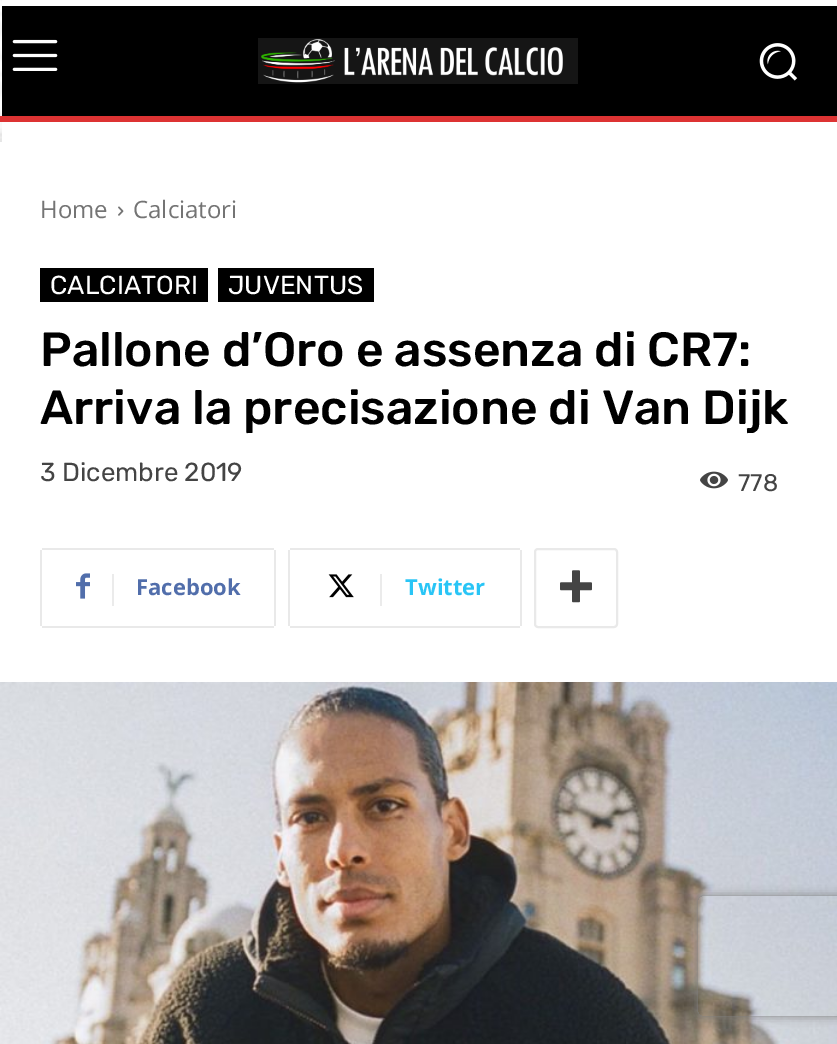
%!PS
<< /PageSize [837 1044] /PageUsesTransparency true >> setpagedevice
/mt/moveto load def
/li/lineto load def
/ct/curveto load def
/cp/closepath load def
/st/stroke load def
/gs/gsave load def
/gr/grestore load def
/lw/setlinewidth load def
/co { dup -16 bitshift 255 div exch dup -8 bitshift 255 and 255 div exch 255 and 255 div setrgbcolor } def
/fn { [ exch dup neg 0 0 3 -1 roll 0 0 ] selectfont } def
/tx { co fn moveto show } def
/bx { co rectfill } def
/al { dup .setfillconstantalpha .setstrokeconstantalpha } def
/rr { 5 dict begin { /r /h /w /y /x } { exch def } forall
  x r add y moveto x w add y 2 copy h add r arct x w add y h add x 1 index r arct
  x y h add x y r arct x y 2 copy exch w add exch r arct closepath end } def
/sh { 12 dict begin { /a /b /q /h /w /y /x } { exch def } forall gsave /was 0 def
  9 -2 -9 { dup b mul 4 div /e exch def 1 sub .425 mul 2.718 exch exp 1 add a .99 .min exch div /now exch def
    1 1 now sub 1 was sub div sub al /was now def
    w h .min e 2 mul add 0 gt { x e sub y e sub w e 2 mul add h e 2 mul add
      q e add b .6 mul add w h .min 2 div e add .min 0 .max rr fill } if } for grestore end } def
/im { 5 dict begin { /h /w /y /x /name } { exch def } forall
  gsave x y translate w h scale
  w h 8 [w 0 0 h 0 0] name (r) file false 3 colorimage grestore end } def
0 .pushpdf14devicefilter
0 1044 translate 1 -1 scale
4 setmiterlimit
0 0 837 1044 16#FFFFFF bx
(media/1.raw) 0 0 2 142 im
16#000000 co
-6 136 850 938 0 10 .12 sh
2 6 835 110 16#000000 bx
(media/2.raw) 12 39 46 32 im
(media/3.raw) 258 38 320 46 im
(media/4.raw) 759 43 39 38 im
0 116 837 6 16#DD3333 bx
2 122 835 20 16#FFFFFF bx
0 142 837 540 16#FFFFFF bx
(media/5.raw) 118 206 6 10 im
40 268 168 34 16#000000 bx
218 268 156 34 16#000000 bx
(media/6.raw) 700 471 28 18 im
40 550 2 76 16#E9E9E9 bx
(media/7.raw) 76 573 14 26 im
42 548 232 2 16#E9E9E9 bx
274 550 2 76 16#E9E9E9 bx
42 626 232 2 16#E9E9E9 bx
112 574 2 32 16#EBEBEB bx
288 550 2 76 16#E9E9E9 bx
(media/8.raw) 328 574 26 24 im
290 548 230 2 16#E9E9E9 bx
520 550 2 76 16#E9E9E9 bx
290 626 230 2 16#E9E9E9 bx
380 574 2 32 16#EBEBEB bx
16#E9E9E9 co
2 lw
535 549 82 78 3 rr st
(media/9.raw) 560 570 32 33 im
(media/10.raw) 0 682 837 362 im
gs
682 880 mt 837 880 li 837 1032 li 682 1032 li cp 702 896 mt 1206 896 li 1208 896 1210 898 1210 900 ct 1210 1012 li 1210 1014 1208 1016 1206 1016 ct 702 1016 li 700 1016 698 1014 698 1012 ct 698 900 li 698 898 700 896 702 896 ct cp eoclip newpath
16#808080 co
698 896 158 120 4 5 1 sh
gr
(Home) 40 218 /OpenSans-Regular 24 16#747474 tx
(Calciatori) 133 218 /OpenSans-Regular 24 16#747474 tx
(CALCIATORI) 50 294 /Rubik-Regular 26 16#FFFFFF tx
(JUVENTUS) 228 294 /Rubik-Regular 26 16#FFFFFF tx
(Pallone d’Oro e assenza di CR7:) 40 366 /Rubik-Medium 48 16#000000 tx
(Arriva la precisazione di Van Dijk) 40 424 /Rubik-Medium 48 16#000000 tx
(3 Dicembre 2019) 40 481 /Rubik-Regular 26 16#444444 tx
(778) 738 491 /Rubik-Regular 24 16#444444 tx
(Facebook) 136 595 /OpenSans-Bold 22 16#516EAB tx
(Twitter) 405 595 /OpenSans-Bold 22 16#29C5F6 tx
.poppdf14devicefilter showpage
